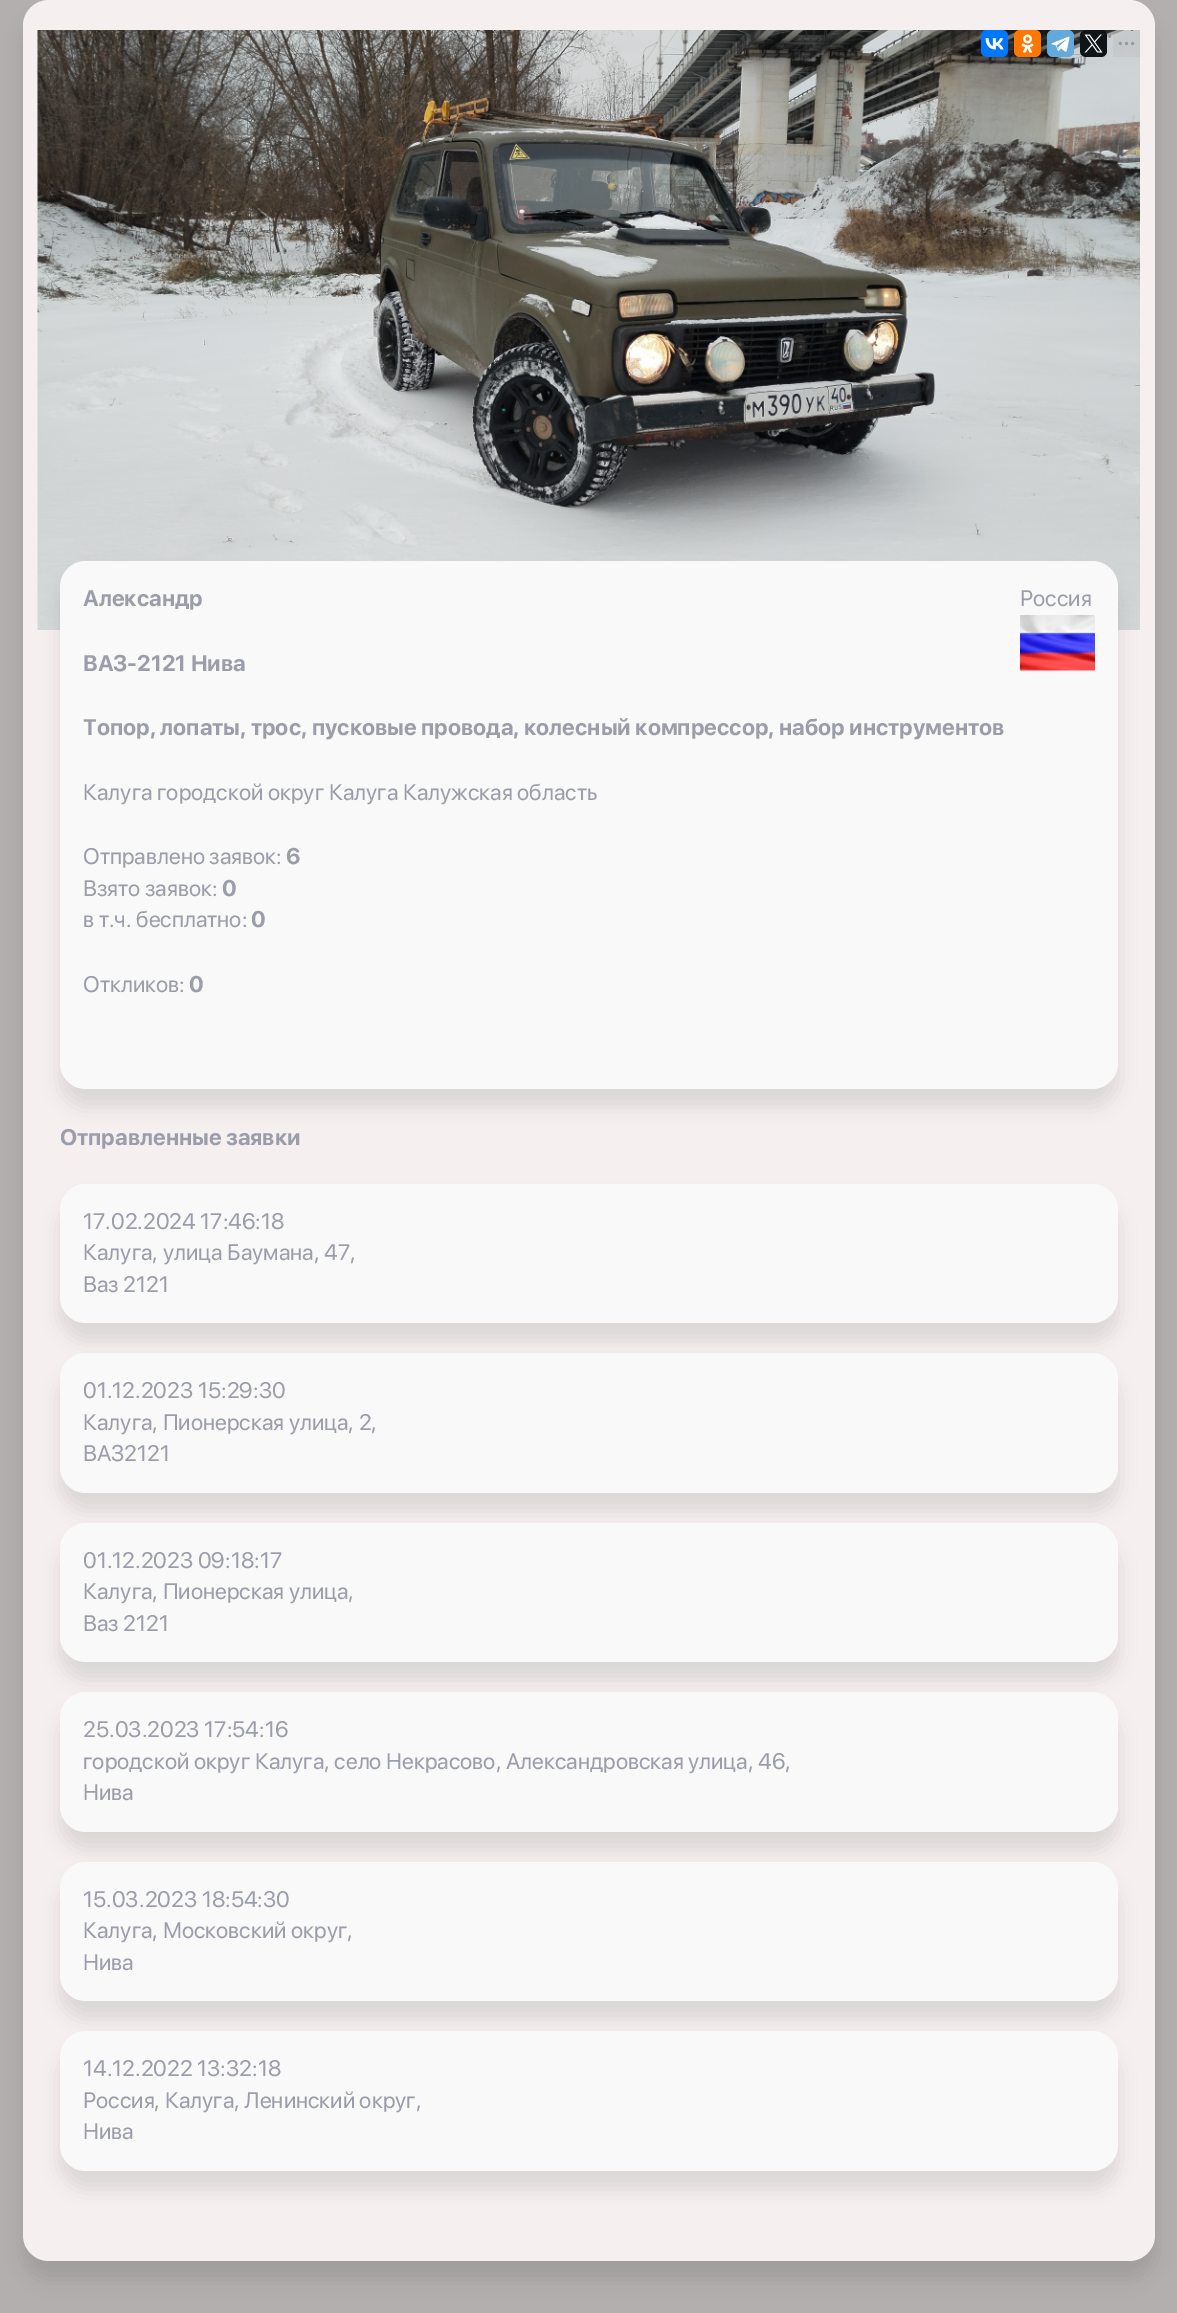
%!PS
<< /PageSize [1177 2313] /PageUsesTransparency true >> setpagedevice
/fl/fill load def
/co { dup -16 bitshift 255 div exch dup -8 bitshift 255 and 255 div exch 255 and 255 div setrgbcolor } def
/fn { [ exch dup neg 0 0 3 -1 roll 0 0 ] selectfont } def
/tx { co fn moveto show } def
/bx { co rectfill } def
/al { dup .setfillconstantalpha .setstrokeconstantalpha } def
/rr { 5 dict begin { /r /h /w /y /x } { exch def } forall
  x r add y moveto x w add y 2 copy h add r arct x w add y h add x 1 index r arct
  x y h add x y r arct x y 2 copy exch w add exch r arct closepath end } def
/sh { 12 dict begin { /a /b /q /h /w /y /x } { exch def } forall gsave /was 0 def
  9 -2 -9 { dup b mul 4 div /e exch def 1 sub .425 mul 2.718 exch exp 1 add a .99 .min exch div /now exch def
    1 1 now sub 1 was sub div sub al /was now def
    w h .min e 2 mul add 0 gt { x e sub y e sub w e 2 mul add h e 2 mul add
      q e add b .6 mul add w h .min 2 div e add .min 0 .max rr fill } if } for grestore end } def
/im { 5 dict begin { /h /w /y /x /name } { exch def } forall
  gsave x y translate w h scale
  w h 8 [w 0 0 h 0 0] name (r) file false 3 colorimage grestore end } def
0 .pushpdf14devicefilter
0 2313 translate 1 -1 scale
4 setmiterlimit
0 0 1177 2313 16#B4AFAF bx
16#000000 co
23 18 1132 2261 26 9 .1 sh
16#F6EFEF co
23 0 1132 2261 26 rr fl
(media/6.raw) 37 30 1103 600 im
16#0077FF co
981 30 27 27 6 rr fl
(media/1.raw) 985 38 19 12 im
16#FF7700 co
1014 30 27 27 6 rr fl
(media/2.raw) 1021 34 13 19 im
16#64A9DC co
1047 30 27 27 6 rr fl
(media/3.raw) 1051 36 19 16 im
16#0F1419 co
1080 30 27 27 6 rr fl
(media/4.raw) 1084 34 19 19 im
0.03 al
1113 30 27 27 16#000000 bx
1 al
(media/5.raw) 1118 41 17 5 im
60 579 1058 528 26 9 .1 sh
16#F9F9F9 co
60 561 1058 528 26 rr fl
(media/7.raw) 1020 615 75 56 im
16#000000 co
60 1202 1058 139 26 9 .1 sh
16#F9F9F9 co
60 1184 1058 139 26 rr fl
16#000000 co
60 1371 1058 140 26 9 .1 sh
16#F9F9F9 co
60 1353 1058 140 26 rr fl
16#000000 co
60 1541 1058 139 26 9 .1 sh
16#F9F9F9 co
60 1523 1058 139 26 rr fl
16#000000 co
60 1710 1058 140 26 9 .1 sh
16#F9F9F9 co
60 1692 1058 140 26 rr fl
16#000000 co
60 1880 1058 139 26 9 .1 sh
16#F9F9F9 co
60 1862 1058 139 26 rr fl
16#000000 co
60 2049 1058 140 26 9 .1 sh
16#F9F9F9 co
60 2031 1058 140 26 rr fl
(Александр) 83 606 /SFProDisplay-Bold 22.5 16#9B9DAB tx
(Россия) 1020 606 /SFProDisplay-Regular 22.5 16#9B9DAB tx
(ВАЗ-2121 Нива) 83 671 /SFProDisplay-Bold 22.5 16#9B9DAB tx
(Топор, лопаты, трос, пусковые провода, колесный компрессор, набор инструментов) 83 735 /SFProDisplay-Bold 22.5 16#9B9DAB tx
(Калуга городской округ Калуга Калужская область) 83 800 /SFProDisplay-Regular 22.5 16#9B9DAB tx
(Отправлено заявок:) 83 864 /SFProDisplay-Regular 22.5 16#9B9DAB tx
(6) 286 864 /SFProDisplay-Bold 22.5 16#9B9DAB tx
(Взято заявок:) 83 896 /SFProDisplay-Regular 22.5 16#9B9DAB tx
(0) 222 896 /SFProDisplay-Bold 22.5 16#9B9DAB tx
(в т.ч. бесплатно:) 83 927 /SFProDisplay-Regular 22.5 16#9B9DAB tx
(0) 251 927 /SFProDisplay-Bold 22.5 16#9B9DAB tx
(Откликов:) 83 992 /SFProDisplay-Regular 22.5 16#9B9DAB tx
(0) 189 992 /SFProDisplay-Bold 22.5 16#9B9DAB tx
(Отправленные заявки) 60 1145 /SFProDisplay-Bold 22.5 16#9B9DAB tx
(17.02.2024 17:46:18) 83 1229 /SFProDisplay-Regular 22.5 16#9B9DAB tx
(Калуга, улица Баумана, 47,) 83 1260 /SFProDisplay-Regular 22.5 16#9B9DAB tx
(Ваз 2121) 83 1292 /SFProDisplay-Regular 22.5 16#9B9DAB tx
(01.12.2023 15:29:30) 83 1398 /SFProDisplay-Regular 22.5 16#9B9DAB tx
(Калуга, Пионерская улица, 2,) 83 1430 /SFProDisplay-Regular 22.5 16#9B9DAB tx
(ВАЗ2121) 83 1461 /SFProDisplay-Regular 22.5 16#9B9DAB tx
(01.12.2023 09:18:17) 83 1568 /SFProDisplay-Regular 22.5 16#9B9DAB tx
(Калуга, Пионерская улица,) 83 1599 /SFProDisplay-Regular 22.5 16#9B9DAB tx
(Ваз 2121) 83 1631 /SFProDisplay-Regular 22.5 16#9B9DAB tx
(25.03.2023 17:54:16) 83 1737 /SFProDisplay-Regular 22.5 16#9B9DAB tx
(городской округ Калуга, село Некрасово, Александровская улица, 46,) 83 1769 /SFProDisplay-Regular 22.5 16#9B9DAB tx
(Нива) 83 1800 /SFProDisplay-Regular 22.5 16#9B9DAB tx
(15.03.2023 18:54:30) 83 1907 /SFProDisplay-Regular 22.5 16#9B9DAB tx
(Калуга, Московский округ,) 83 1938 /SFProDisplay-Regular 22.5 16#9B9DAB tx
(Нива) 83 1970 /SFProDisplay-Regular 22.5 16#9B9DAB tx
(14.12.2022 13:32:18) 83 2076 /SFProDisplay-Regular 22.5 16#9B9DAB tx
(Россия, Калуга, Ленинский округ,) 83 2108 /SFProDisplay-Regular 22.5 16#9B9DAB tx
(Нива) 83 2139 /SFProDisplay-Regular 22.5 16#9B9DAB tx
.poppdf14devicefilter showpage
